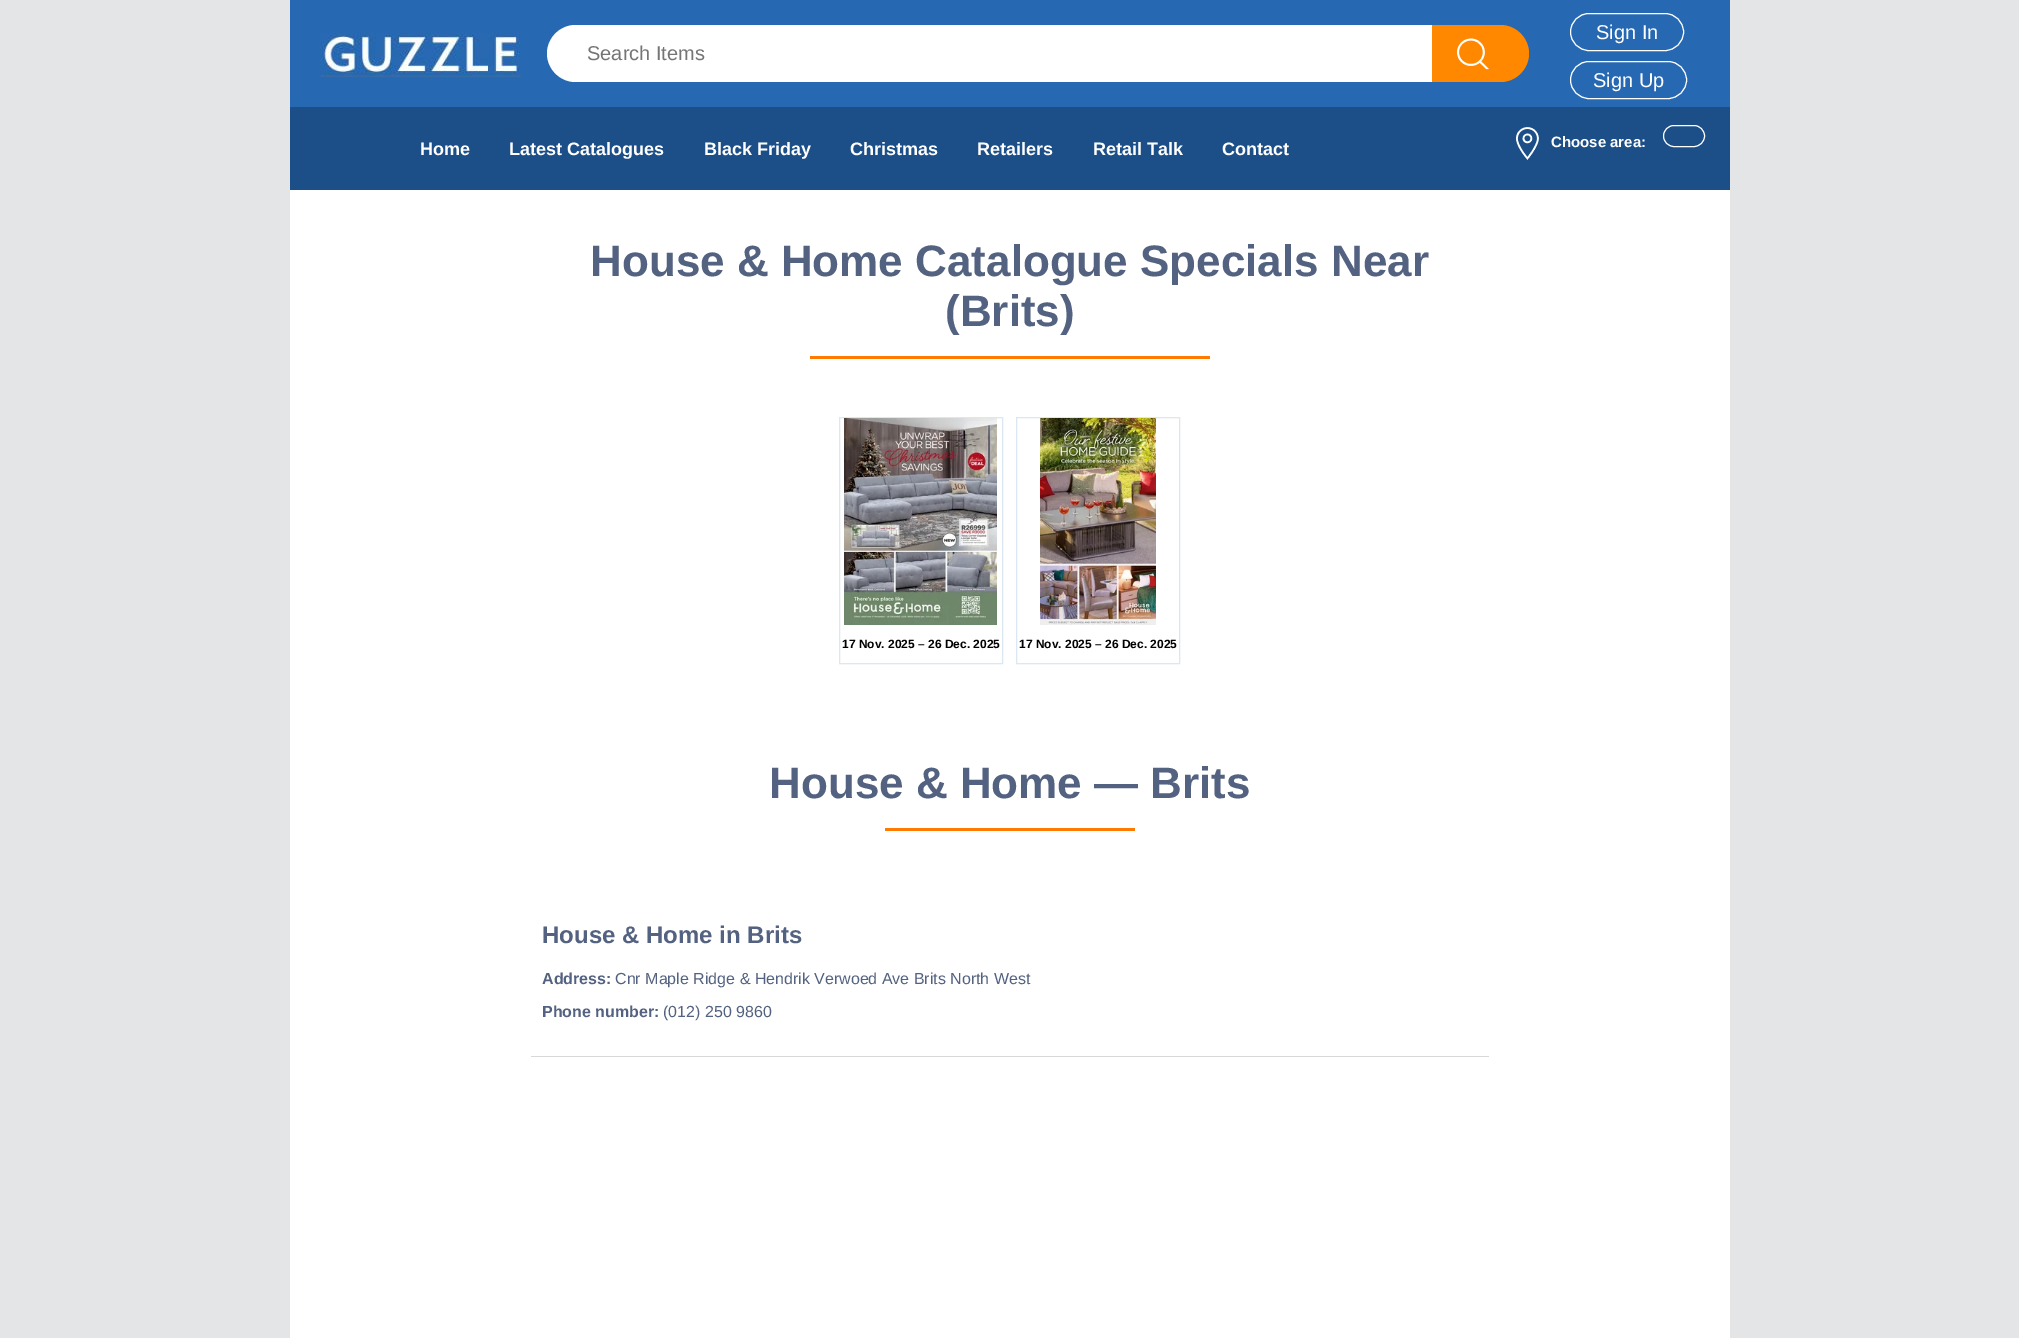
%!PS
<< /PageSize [2019 1338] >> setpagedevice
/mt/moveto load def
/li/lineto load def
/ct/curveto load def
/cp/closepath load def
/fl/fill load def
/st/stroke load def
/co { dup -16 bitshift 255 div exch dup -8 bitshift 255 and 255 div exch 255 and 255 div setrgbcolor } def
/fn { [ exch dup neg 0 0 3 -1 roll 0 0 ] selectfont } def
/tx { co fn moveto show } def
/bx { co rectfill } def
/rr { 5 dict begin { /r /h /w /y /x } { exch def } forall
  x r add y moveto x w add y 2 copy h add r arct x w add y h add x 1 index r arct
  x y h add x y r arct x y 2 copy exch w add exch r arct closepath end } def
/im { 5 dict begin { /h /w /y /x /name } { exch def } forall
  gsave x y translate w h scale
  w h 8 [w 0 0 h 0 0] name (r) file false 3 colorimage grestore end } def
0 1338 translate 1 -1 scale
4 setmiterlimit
0 0 2019 1338 16#E4E5E7 bx
290 190 1440 1148 16#FFFFFF bx
290 0 1440 107 16#2668B2 bx
(media/1.raw) 320 33 202 44 im
16#FFFFFF co
575.5 25 mt 1460 25 li 1460 82 li 575.5 82 li 560 82 547 69 547 53.5 ct 547 38 560 25 575.5 25 ct cp fl
16#FF8800 co
1432 25 mt 1500.5 25 li 1516 25 1529 38 1529 53.5 ct 1529 69 1516 82 1500.5 82 ct 1432 82 li cp fl
(media/2.raw) 1457 38 32 32 im
16#FFFFFF co
1570.5 13.5 113 37 18.5 rr st
1570.5 61.5 116 37 18.5 rr st
290 107 1440 83 16#1C4F88 bx
(media/3.raw) 1516 127 23 33 im
16#FFFFFF co
1663.5 125.5 41 21 10.5 rr st
810 356 400 3 16#FF7A00 bx
16#DBE7F2 co
839.5 417.5 163 246 rectstroke
(media/4.raw) 844 418 153 207 im
1016.5 417.5 163 246 rectstroke
(media/5.raw) 1040 418 116 207 im
885 828 250 3 16#FF7A00 bx
531 1056 958 1 16#D8D8D8 bx
(Search Items) 587 60 /LiberationSans-Regular 20 16#757575 tx
(Sign In) 1596 39 /LiberationSans-Regular 20 16#FFFFFF tx
(Sign Up) 1593 87 /LiberationSans-Regular 20 16#FFFFFF tx
(Home) 420 155 /LiberationSans-Bold 18 16#FFFFFF tx
(Latest Catalogues) 509 155 /LiberationSans-Bold 18 16#FFFFFF tx
(Black Friday) 704 155 /LiberationSans-Bold 18 16#FFFFFF tx
(Christmas) 850 155 /LiberationSans-Bold 18 16#FFFFFF tx
(Retailers) 977 155 /LiberationSans-Bold 18 16#FFFFFF tx
(Retail Talk) 1093 155 /LiberationSans-Bold 18 16#FFFFFF tx
(Contact) 1222 155 /LiberationSans-Bold 18 16#FFFFFF tx
(Choose area:) 1551 147 /LiberationSans-Bold 15 16#FFFFFF tx
(House & Home Catalogue Specials Near) 590 276 /LiberationSans-Bold 44 16#536280 tx
(\(Brits\)) 945 326 /LiberationSans-Bold 44 16#536280 tx
(17 Nov. 2025 – 26 Dec. 2025) 842 648 /LiberationSans-Bold 12 16#000000 tx
(17 Nov. 2025 – 26 Dec. 2025) 1019 648 /LiberationSans-Bold 12 16#000000 tx
(House & Home — Brits) 769 798 /LiberationSans-Bold 44 16#536280 tx
(House & Home in Brits) 542 943 /LiberationSans-Bold 24 16#536280 tx
(Address:) 542 984 /LiberationSans-Bold 16 16#536280 tx
(Cnr Maple Ridge & Hendrik Verwoed Ave Brits North West) 615 984 /LiberationSans-Regular 16 16#536280 tx
(Phone number:) 542 1017 /LiberationSans-Bold 16 16#536280 tx
(\(012\) 250 9860) 663 1017 /LiberationSans-Regular 16 16#536280 tx
showpage
